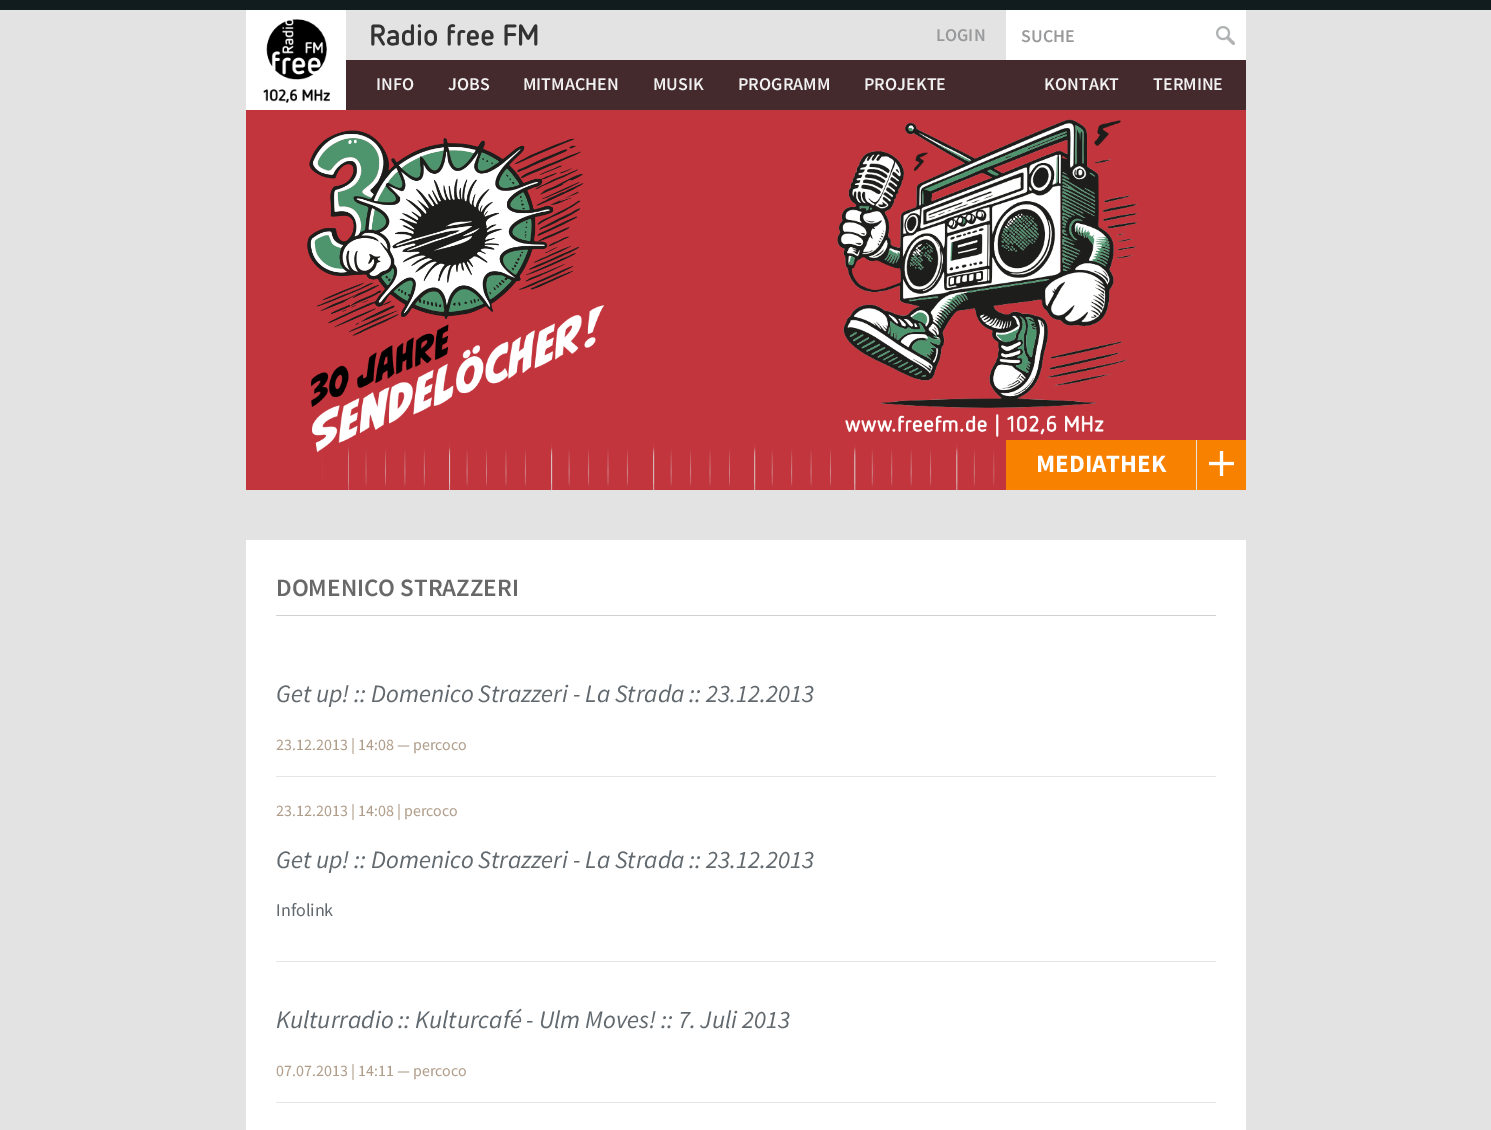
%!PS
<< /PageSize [1491 1130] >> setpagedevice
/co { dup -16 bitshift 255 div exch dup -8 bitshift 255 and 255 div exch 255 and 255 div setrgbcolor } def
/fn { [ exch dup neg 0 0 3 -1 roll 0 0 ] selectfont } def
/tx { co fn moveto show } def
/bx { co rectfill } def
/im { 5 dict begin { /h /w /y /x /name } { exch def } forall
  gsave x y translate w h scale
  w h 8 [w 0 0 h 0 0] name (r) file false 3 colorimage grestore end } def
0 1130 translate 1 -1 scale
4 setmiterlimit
0 0 1491 1130 16#E3E3E3 bx
0 0 1491 10 16#111C1F bx
246 10 100 100 16#FFFFFF bx
(media/1.raw) 263 19 67 84 im
(media/2.raw) 371 24 167 22 im
1006 10 240 50 16#FFFFFF bx
(media/3.raw) 1216 26 19 19 im
346 60 900 50 16#44292D bx
(media/4.raw) 246 110 1000 380 im
(media/5.raw) 322 443 839 49 im
246 540 1000 590 16#FFFFFF bx
276 615 940 1 16#D2D2D4 bx
276 776 940 1 16#E5E5E5 bx
276 961 940 1 16#E5E5E5 bx
276 1102 940 1 16#E5E5E5 bx
1006 440 240 50 16#F98100 bx
1196 440 1 50 16#E3E3E3 bx
(media/6.raw) 1209 451 25 25 im
(LOGIN) 936 41 /SourceSansPro-SemiBold 18 16#999A9B tx
(SUCHE) 1021 42 /SourceSansPro-SemiBold 18 16#999A9B tx
(INFO) 376 90 /SourceSansPro-SemiBold 18 16#F0F0F1 tx
(JOBS) 448 90 /SourceSansPro-SemiBold 18 16#F0F0F1 tx
(MITMACHEN) 523 90 /SourceSansPro-SemiBold 18 16#F0F0F1 tx
(MUSIK) 653 90 /SourceSansPro-SemiBold 18 16#F0F0F1 tx
(PROGRAMM) 738 90 /SourceSansPro-SemiBold 18 16#F0F0F1 tx
(PROJEKTE) 864 90 /SourceSansPro-SemiBold 18 16#F0F0F1 tx
(KONTAKT) 1044 90 /SourceSansPro-SemiBold 18 16#F0F0F1 tx
(TERMINE) 1153 90 /SourceSansPro-SemiBold 18 16#F0F0F1 tx
(DOMENICO STRAZZERI) 276 596 /SourceSansPro-SemiBold 25 16#686868 tx
(Get up! :: Domenico Strazzeri - La Strada :: 23.12.2013) 276 702 /SourceSansPro-Italic 25 16#61686E tx
(23.12.2013 | 14:08 — percoco) 276 750 /SourceSansPro-Regular 16 16#B09D8A tx
(23.12.2013 | 14:08 | percoco) 276 816 /SourceSansPro-Regular 16 16#B09D8A tx
(Get up! :: Domenico Strazzeri - La Strada :: 23.12.2013) 276 868 /SourceSansPro-Italic 25 16#61686E tx
(Infolink) 276 916 /SourceSansPro-Regular 18 16#61686E tx
(Kulturradio :: Kulturcafé - Ulm Moves! :: 7. Juli 2013) 276 1028 /SourceSansPro-Italic 25 16#61686E tx
(07.07.2013 | 14:11 — percoco) 276 1076 /SourceSansPro-Regular 16 16#B09D8A tx
(MEDIATHEK) 1036 472 /SourceSansPro-Bold 25 16#FFFFFF tx
showpage
